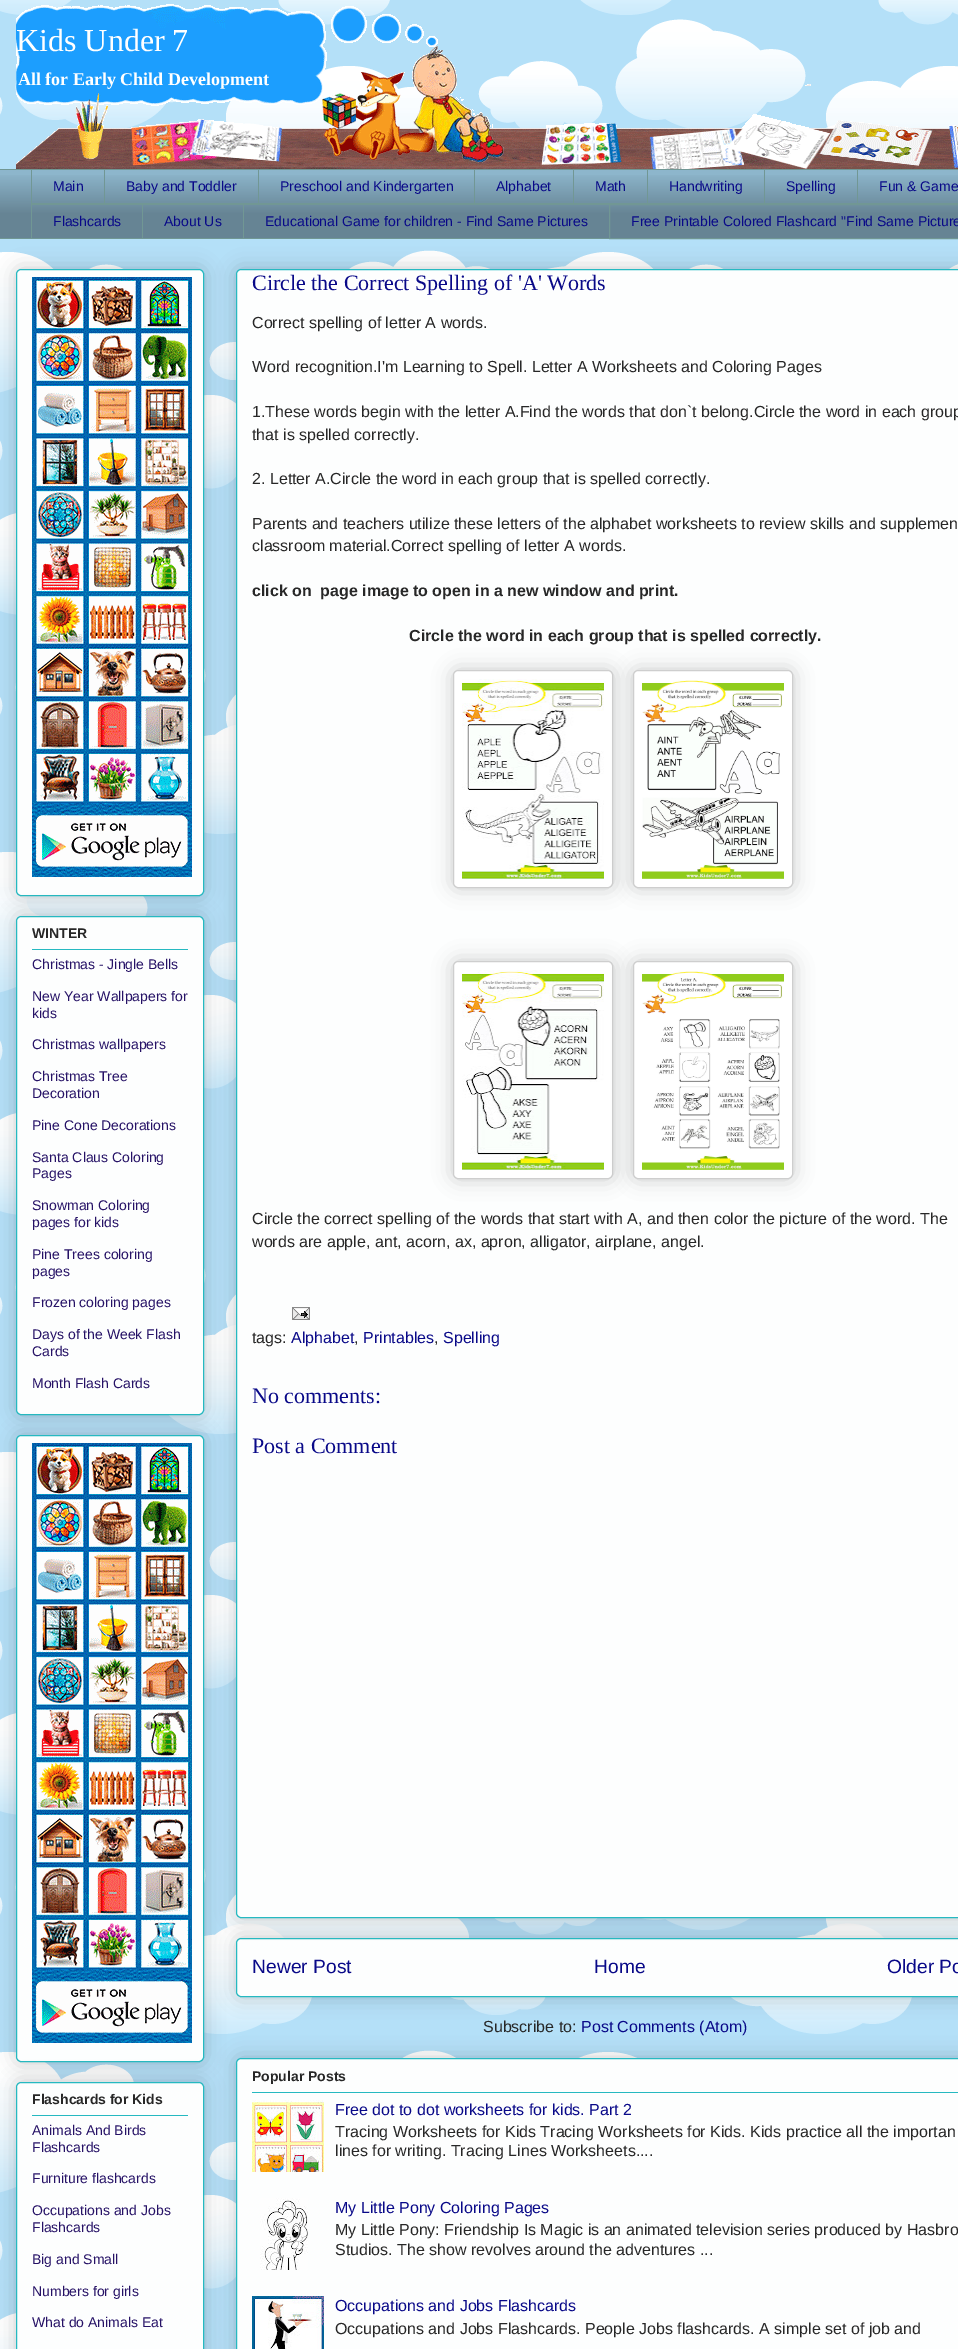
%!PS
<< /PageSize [958 2349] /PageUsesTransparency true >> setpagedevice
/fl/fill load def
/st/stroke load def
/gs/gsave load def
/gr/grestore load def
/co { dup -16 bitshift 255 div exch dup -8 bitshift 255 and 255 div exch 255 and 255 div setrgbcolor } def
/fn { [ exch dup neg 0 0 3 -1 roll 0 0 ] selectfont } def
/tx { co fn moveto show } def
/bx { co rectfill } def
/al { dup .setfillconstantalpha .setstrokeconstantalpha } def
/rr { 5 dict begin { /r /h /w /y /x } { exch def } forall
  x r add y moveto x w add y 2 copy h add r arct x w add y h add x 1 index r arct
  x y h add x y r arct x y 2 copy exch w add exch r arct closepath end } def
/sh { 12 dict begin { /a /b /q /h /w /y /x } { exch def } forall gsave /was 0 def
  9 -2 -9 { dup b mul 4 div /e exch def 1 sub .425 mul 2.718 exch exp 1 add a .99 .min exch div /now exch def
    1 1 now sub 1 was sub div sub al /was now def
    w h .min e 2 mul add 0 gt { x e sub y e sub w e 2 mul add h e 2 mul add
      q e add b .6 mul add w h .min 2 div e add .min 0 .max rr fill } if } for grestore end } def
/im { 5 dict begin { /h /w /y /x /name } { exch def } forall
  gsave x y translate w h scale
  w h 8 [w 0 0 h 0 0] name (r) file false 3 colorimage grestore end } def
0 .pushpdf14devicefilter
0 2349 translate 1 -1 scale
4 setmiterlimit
0 0 958 2349 16#FFFFFF bx
(media/1.raw) 0 0 958 2349 im
(media/2.raw) 16 4 942 165 im
0 170 958 68 16#8DB6CC bx
(media/3.raw) 0 175 958 63 im
0 169 958 1 16#719794 bx
31 203 927 1 16#719794 bx
31 169 1 35 16#719794 bx
104 169 1 35 16#719794 bx
258 169 1 35 16#719794 bx
474 169 1 35 16#719794 bx
573 169 1 35 16#719794 bx
647 169 1 35 16#719794 bx
764 169 1 35 16#719794 bx
857 169 1 35 16#719794 bx
31 204 578 1 16#719794 bx
31 204 1 35 16#719794 bx
142 204 1 35 16#719794 bx
243 204 1 35 16#719794 bx
609.5 204.5 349 34 rectstroke
0 238 609 1 16#719794 bx
16#000000 co
16 269 188 627 5 10 .2 sh
16#FDFEFE co
16.5 269.5 187 626 4.5 rr gs fl gr
16#26B9C1 co
st
(media/4.raw) 32 277 160 600 im
16#000000 co
16 916 188 499 5 10 .2 sh
16#FDFEFE co
16.5 916.5 187 498 4.5 rr gs fl gr
16#26B9C1 co
st
32 949 156 1 16#26B9C1 bx
16#000000 co
16 1435 188 627 5 10 .2 sh
16#FDFEFE co
16.5 1435.5 187 626 4.5 rr gs fl gr
16#26B9C1 co
st
(media/4.raw) 32 1443 160 600 im
16#000000 co
16 2082 188 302 5 10 .2 sh
16#FDFEFE co
16.5 2082.5 187 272 4.5 rr gs fl gr
16#26B9C1 co
st
32 2115 156 1 16#26B9C1 bx
16#000000 co
236 1938 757 59 5 10 .2 sh
16#FDFEFE co
236.5 1938.5 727 58 4.5 rr gs fl gr
16#26B9C1 co
st
16#000000 co
236 269 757 1649 5 10 .2 sh
16#FDFEFE co
236.5 269.5 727 1648 4.5 rr gs fl gr
16#26B9C1 co
st
16#000000 co
453 670 160 218 5 10 .2 sh
16#FFFFFF co
453.5 670.5 159 217 4.5 rr gs fl gr
16#CECECE co
st
(media/5.raw) 462 679 142 200 im
16#000000 co
633 670 160 218 5 10 .2 sh
16#FFFFFF co
633.5 670.5 159 217 4.5 rr gs fl gr
16#CECECE co
st
(media/6.raw) 642 680 142 199 im
16#000000 co
453 961 160 218 5 10 .2 sh
16#FFFFFF co
453.5 961.5 159 217 4.5 rr gs fl gr
16#CECECE co
st
(media/7.raw) 462 970 142 200 im
16#000000 co
633 961 160 218 5 10 .2 sh
16#FFFFFF co
633.5 961.5 159 217 4.5 rr gs fl gr
16#CECECE co
st
(media/8.raw) 642 971 142 199 im
(media/9.raw) 292 1307 18 13 im
16#000000 co
236 2058 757 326 5 10 .2 sh
16#FDFEFE co
236.5 2058.5 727 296 4.5 rr gs fl gr
16#26B9C1 co
st
252 2092 706 1 16#26B9C1 bx
(media/10.raw) 252 2100 72 72 im
(media/11.raw) 260 2198 48 72 im
(media/12.raw) 252 2296 72 53 im
(Kids Under 7) 16 51 /LiberationSerif-Regular 32 16#FFFFFF tx
(All for Early Child Development) 18 85 /LiberationSerif-Bold 18 16#FFFFFF tx
(Main) 53 191 /LiberationSans-Regular 14 16#090988 tx
(Baby and Toddler) 126 191 /LiberationSans-Regular 14 16#090988 tx
(Preschool and Kindergarten) 280 191 /LiberationSans-Regular 14 16#090988 tx
(Alphabet) 496 191 /LiberationSans-Regular 14 16#090988 tx
(Math) 595 191 /LiberationSans-Regular 14 16#090988 tx
(Handwriting) 669 191 /LiberationSans-Regular 14 16#090988 tx
(Spelling) 786 191 /LiberationSans-Regular 14 16#090988 tx
(Fun & Game) 879 191 /LiberationSans-Regular 14 16#090988 tx
(Flashcards) 53 226 /LiberationSans-Regular 14 16#090988 tx
(About Us) 164 226 /LiberationSans-Regular 14 16#090988 tx
(Educational Game for children - Find Same Pictures) 265 226 /LiberationSans-Regular 14 16#090988 tx
(Free Printable Colored Flashcard "Find Same Picture) 631 226 /LiberationSans-Regular 14 16#090988 tx
(WINTER) 32 938 /LiberationSans-Bold 14 16#272727 tx
(Christmas - Jingle Bells) 32 969 /LiberationSans-Regular 14 16#261266 tx
(New Year Wallpapers for) 32 1001 /LiberationSans-Regular 14 16#261266 tx
(kids) 32 1018 /LiberationSans-Regular 14 16#261266 tx
(Christmas wallpapers) 32 1049 /LiberationSans-Regular 14 16#261266 tx
(Christmas Tree) 32 1081 /LiberationSans-Regular 14 16#261266 tx
(Decoration) 32 1098 /LiberationSans-Regular 14 16#261266 tx
(Pine Cone Decorations) 32 1130 /LiberationSans-Regular 14 16#261266 tx
(Santa Claus Coloring) 32 1162 /LiberationSans-Regular 14 16#261266 tx
(Pages) 32 1178 /LiberationSans-Regular 14 16#261266 tx
(Snowman Coloring) 32 1210 /LiberationSans-Regular 14 16#261266 tx
(pages for kids) 32 1227 /LiberationSans-Regular 14 16#261266 tx
(Pine Trees coloring) 32 1259 /LiberationSans-Regular 14 16#261266 tx
(pages) 32 1276 /LiberationSans-Regular 14 16#261266 tx
(Frozen coloring pages) 32 1307 /LiberationSans-Regular 14 16#261266 tx
(Days of the Week Flash) 32 1339 /LiberationSans-Regular 14 16#261266 tx
(Cards) 32 1356 /LiberationSans-Regular 14 16#261266 tx
(Month Flash Cards) 32 1388 /LiberationSans-Regular 14 16#261266 tx
(Flashcards for Kids) 32 2104 /LiberationSans-Bold 14 16#272727 tx
(Animals And Birds) 32 2135 /LiberationSans-Regular 14 16#261266 tx
(Flashcards) 32 2152 /LiberationSans-Regular 14 16#261266 tx
(Furniture flashcards) 32 2183 /LiberationSans-Regular 14 16#261266 tx
(Occupations and Jobs) 32 2215 /LiberationSans-Regular 14 16#261266 tx
(Flashcards) 32 2232 /LiberationSans-Regular 14 16#261266 tx
(Big and Small) 32 2264 /LiberationSans-Regular 14 16#261266 tx
(Numbers for girls) 32 2296 /LiberationSans-Regular 14 16#261266 tx
(What do Animals Eat) 32 2327 /LiberationSans-Regular 14 16#261266 tx
(Circle the Correct Spelling of 'A' Words) 252 290 /LiberationSerif-Regular 22 16#090988 tx
(Correct spelling of letter A words.) 252 328 /LiberationSans-Regular 16 16#272727 tx
(Word recognition.I'm Learning to Spell. Letter A Worksheets and Coloring Pages) 252 372 /LiberationSans-Regular 16 16#272727 tx
(1.These words begin with the letter A.Find the words that don`t belong.Circle the word in each group) 252 417 /LiberationSans-Regular 16 16#272727 tx
(that is spelled correctly.) 252 440 /LiberationSans-Regular 16 16#272727 tx
(2. Letter A.Circle the word in each group that is spelled correctly.) 252 484 /LiberationSans-Regular 16 16#272727 tx
(Parents and teachers utilize these letters of the alphabet worksheets to review skills and supplemen) 252 529 /LiberationSans-Regular 16 16#272727 tx
(classroom material.Correct spelling of letter A words.) 252 551 /LiberationSans-Regular 16 16#272727 tx
(click on  page image to open in a new window and print.) 252 596 /LiberationSans-Bold 16 16#272727 tx
(Circle the word in each group that is spelled correctly.) 409 641 /LiberationSans-Bold 16 16#272727 tx
(Circle the correct spelling of the words that start with A, and then color the picture of the word. The) 252 1224 /LiberationSans-Regular 16 16#272727 tx
(words are apple, ant, acorn, ax, apron, alligator, airplane, angel.) 252 1247 /LiberationSans-Regular 16 16#272727 tx
(tags:) 252 1343 /LiberationSans-Regular 16 16#272727 tx
(Alphabet) 291 1343 /LiberationSans-Regular 16 16#090988 tx
(,) 354 1343 /LiberationSans-Regular 16 16#272727 tx
(Printables) 363 1343 /LiberationSans-Regular 16 16#090988 tx
(,) 434 1343 /LiberationSans-Regular 16 16#272727 tx
(Spelling) 443 1343 /LiberationSans-Regular 16 16#090988 tx
(No comments:) 252 1403 /LiberationSerif-Regular 22 16#090988 tx
(Post a Comment) 252 1453 /LiberationSerif-Regular 22 16#090988 tx
(Newer Post) 252 1973 /LiberationSans-Regular 19.25 16#090988 tx
(Home) 594 1973 /LiberationSans-Regular 19.25 16#090988 tx
(Older Po) 887 1973 /LiberationSans-Regular 19.25 16#090988 tx
(Subscribe to:) 483 2032 /LiberationSans-Regular 16 16#272727 tx
(Post Comments \(Atom\)) 581 2032 /LiberationSans-Regular 16 16#090988 tx
(Popular Posts) 252 2081 /LiberationSans-Bold 14 16#272727 tx
(Free dot to dot worksheets for kids. Part 2) 335 2115 /LiberationSans-Regular 16 16#090988 tx
(Tracing Worksheets for Kids Tracing Worksheets for Kids. Kids practice all the importan) 335 2137 /LiberationSans-Regular 16 16#272727 tx
(lines for writing. Tracing Lines Worksheets....) 335 2156 /LiberationSans-Regular 16 16#272727 tx
(My Little Pony Coloring Pages) 335 2213 /LiberationSans-Regular 16 16#090988 tx
(My Little Pony: Friendship Is Magic is an animated television series produced by Hasbro) 335 2235 /LiberationSans-Regular 16 16#272727 tx
(Studios. The show revolves around the adventures ...) 335 2255 /LiberationSans-Regular 16 16#272727 tx
(Occupations and Jobs Flashcards) 335 2311 /LiberationSans-Regular 16 16#090988 tx
(Occupations and Jobs Flashcards. People Jobs flashcards. A simple set of job and) 335 2334 /LiberationSans-Regular 16 16#272727 tx
.poppdf14devicefilter showpage
